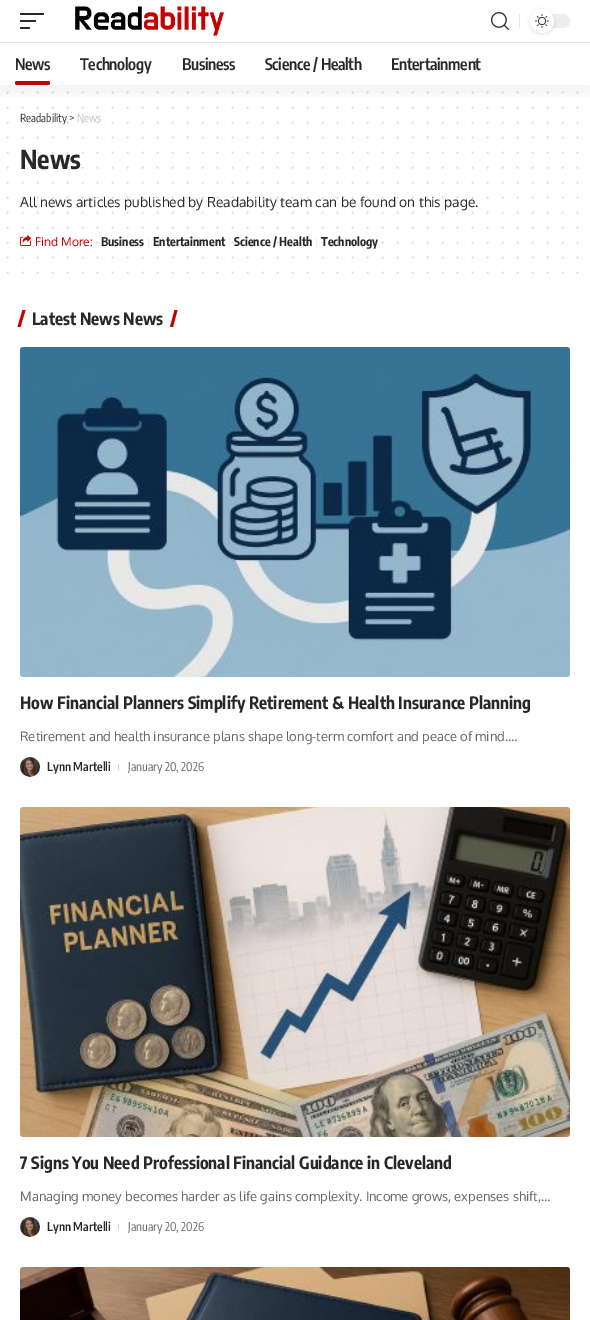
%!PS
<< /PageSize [590 1320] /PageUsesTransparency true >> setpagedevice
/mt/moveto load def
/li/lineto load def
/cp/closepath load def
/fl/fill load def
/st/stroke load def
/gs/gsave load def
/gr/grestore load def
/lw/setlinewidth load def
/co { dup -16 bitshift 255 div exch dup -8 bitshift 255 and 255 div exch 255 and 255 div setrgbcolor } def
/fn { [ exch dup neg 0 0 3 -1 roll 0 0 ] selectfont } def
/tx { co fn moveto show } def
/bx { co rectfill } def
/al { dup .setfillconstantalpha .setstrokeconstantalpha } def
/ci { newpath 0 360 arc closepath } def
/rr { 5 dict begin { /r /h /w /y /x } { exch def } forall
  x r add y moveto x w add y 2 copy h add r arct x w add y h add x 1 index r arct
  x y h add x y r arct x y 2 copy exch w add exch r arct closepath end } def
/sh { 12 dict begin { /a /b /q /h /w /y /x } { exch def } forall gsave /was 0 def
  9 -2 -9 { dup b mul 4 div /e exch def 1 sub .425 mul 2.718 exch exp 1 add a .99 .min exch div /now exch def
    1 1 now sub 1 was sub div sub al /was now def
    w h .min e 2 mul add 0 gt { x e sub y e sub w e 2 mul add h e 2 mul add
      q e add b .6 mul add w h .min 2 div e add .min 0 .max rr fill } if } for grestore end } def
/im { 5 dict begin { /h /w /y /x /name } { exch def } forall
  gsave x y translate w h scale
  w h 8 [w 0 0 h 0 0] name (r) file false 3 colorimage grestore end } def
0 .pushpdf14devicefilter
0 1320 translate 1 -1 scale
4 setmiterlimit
0 0 590 1320 16#FFFFFF bx
16#DFDFDF co
2 lw
1 setlinecap
[0 15] 0 setdash
7.5 92.5 mt 577.7 92.5 li st
7.5 107.5 mt 577.7 107.5 li st
7.5 122.5 mt 577.7 122.5 li st
gs
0 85 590 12 rectclip
16#000000 co
0 4 590 85 0 15 .07 sh
gr
16#282828 co
20 13 24 2 1 rr fl
20 20 16 2 1 rr fl
20 27 10 2 1 rr fl
(media/1.raw) 75 6 149 30 im
(media/2.raw) 491 12 18 18 im
519 14 1 14 16#E4E4E4 bx
16#EDEDED co
530 14 40 14 7 rr fl
16#000000 co
530 10 24 24 12 2 .12 sh
16#FFFFFF co
542 21 12 ci fl
(media/3.raw) 535 14 14 14 im
0 42 590 1 16#E4E4E4 bx
16#C50202 co
15 81 35 4 2 rr fl
16#DFDFDF co
7.5 137.5 mt 577.7 137.5 li st
7.5 152.5 mt 577.7 152.5 li st
7.5 167.5 mt 577.7 167.5 li st
7.5 182.5 mt 577.7 182.5 li st
7.5 197.5 mt 577.7 197.5 li st
7.5 212.5 mt 577.7 212.5 li st
7.5 227.5 mt 577.7 227.5 li st
7.5 242.5 mt 577.7 242.5 li st
7.5 257.5 mt 577.7 257.5 li st
7.5 272.5 mt 577.7 272.5 li st
(media/4.raw) 20 235 11 11 im
148 237 1 10 16#EDEDED bx
229 237 1 10 16#EDEDED bx
316 237 1 10 16#EDEDED bx
16#C50202 co
174.5 310 mt 177.5 310 li 173 327 li 170 327 li cp fl
22.5 310 mt 25.5 310 li 20.5 327 li 17.5 327 li cp fl
(media/5.raw) 20 347 550 330 im
(media/6.raw) 20 757 20 20 im
118 764 1 6 16#D1D1D1 bx
(media/7.raw) 20 807 550 330 im
(media/8.raw) 20 1217 20 20 im
118 1224 1 6 16#D1D1D1 bx
(media/9.raw) 20 1267 550 53 im
/EncodeSansCondensed-SemiBold 16 fn
16#282828 co
15 70 mt -.3 0 (News) ashow
80 70 mt -.3 0 (Technology) ashow
182 70 mt -.3 0 (Business) ashow
265 70 mt -.3 0 (Science / Health) ashow
391 70 mt -.3 0 (Entertainment) ashow
(Readability >) 20 122 /EncodeSansCondensed-Regular 11 16#282828 tx
(News) 77 122 /EncodeSansCondensed-Regular 11 16#BFBFBF tx
(News) 20 169 /EncodeSansCondensed-Bold 26 16#282828 tx
(All news articles published by Readability team can be found on this page.) 20 207 /Oxygen-Regular 13.8 16#282828 tx
(Find More:) 35 246 /Oxygen-Regular 12 16#C50202 tx
(Business) 101 246 /EncodeSansCondensed-Bold 12 16#282828 tx
(Entertainment) 153 246 /EncodeSansCondensed-Bold 12 16#282828 tx
(Science / Health) 234 246 /EncodeSansCondensed-Bold 12 16#282828 tx
(Technology) 321 246 /EncodeSansCondensed-Bold 12 16#282828 tx
(Latest News News) 32 325 /EncodeSansCondensed-Bold 17 16#282828 tx
(How Financial Planners Simplify Retirement & Health Insurance Planning) 20 709 /EncodeSansCondensed-Bold 17 16#282828 tx
(Retirement and health insurance plans shape long-term comfort and peace of mind.…) 20 741 /Oxygen-Regular 13 16#666666 tx
(Lynn Martelli) 47 771 /EncodeSansCondensed-SemiBold 12 16#282828 tx
(January 20, 2026) 128 771 /EncodeSansCondensed-Regular 12 16#666666 tx
(7 Signs You Need Professional Financial Guidance in Cleveland) 20 1169 /EncodeSansCondensed-Bold 17 16#282828 tx
(Managing money becomes harder as life gains complexity. Income grows, expenses shift,…) 20 1201 /Oxygen-Regular 13 16#666666 tx
(Lynn Martelli) 47 1231 /EncodeSansCondensed-SemiBold 12 16#282828 tx
(January 20, 2026) 128 1231 /EncodeSansCondensed-Regular 12 16#666666 tx
.poppdf14devicefilter showpage
